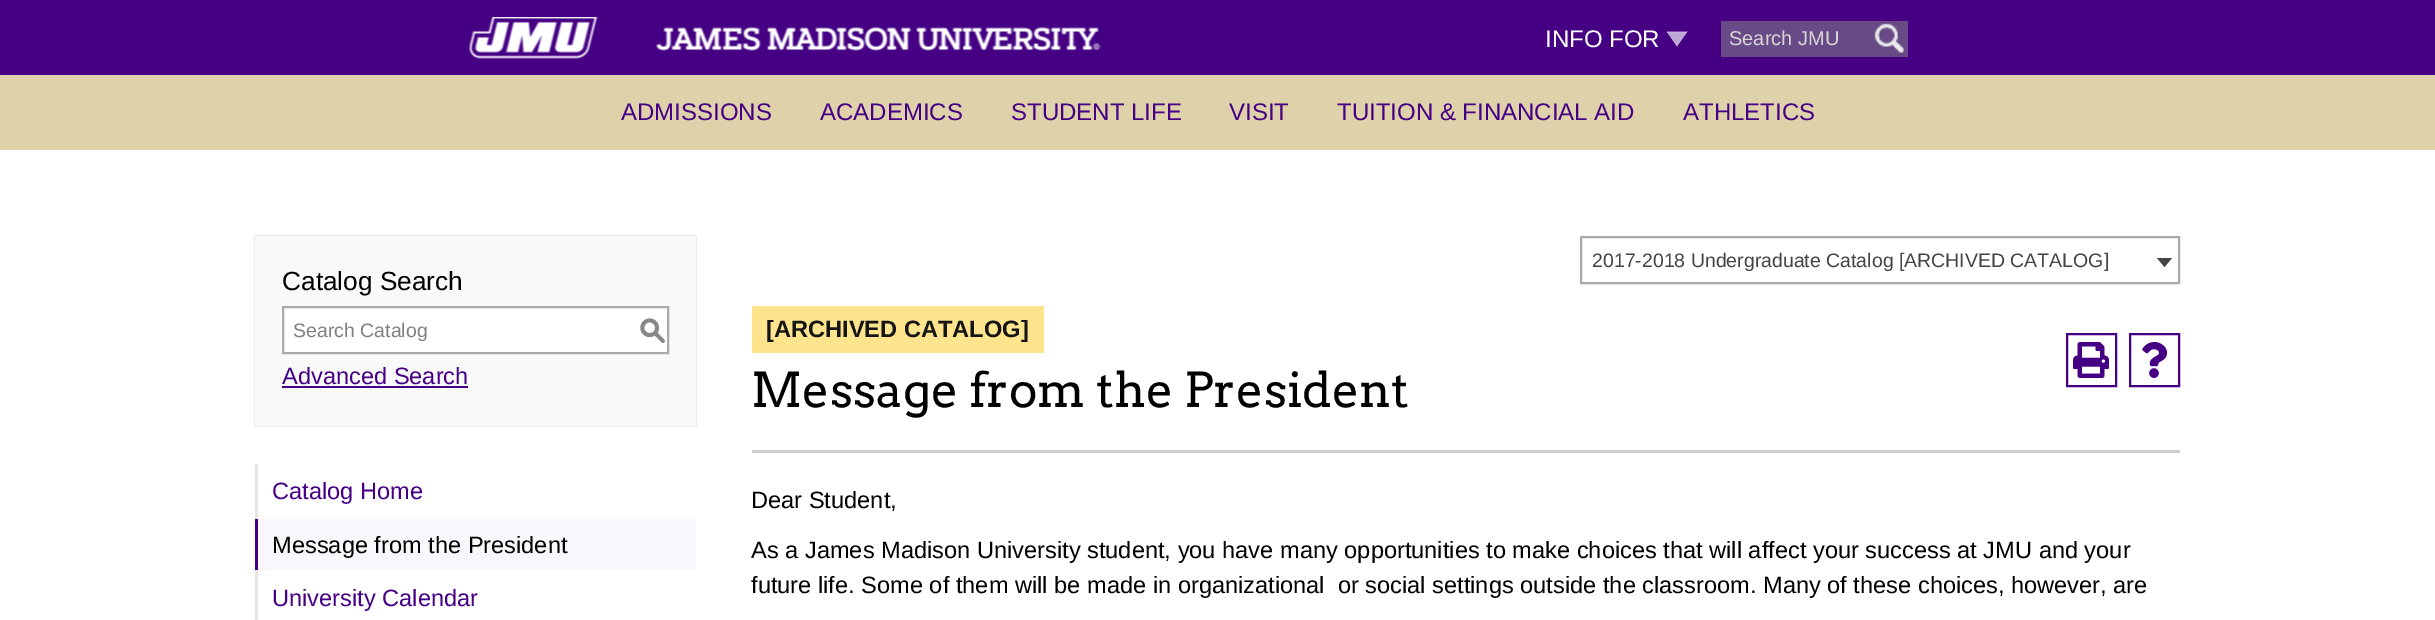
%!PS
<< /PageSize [2435 620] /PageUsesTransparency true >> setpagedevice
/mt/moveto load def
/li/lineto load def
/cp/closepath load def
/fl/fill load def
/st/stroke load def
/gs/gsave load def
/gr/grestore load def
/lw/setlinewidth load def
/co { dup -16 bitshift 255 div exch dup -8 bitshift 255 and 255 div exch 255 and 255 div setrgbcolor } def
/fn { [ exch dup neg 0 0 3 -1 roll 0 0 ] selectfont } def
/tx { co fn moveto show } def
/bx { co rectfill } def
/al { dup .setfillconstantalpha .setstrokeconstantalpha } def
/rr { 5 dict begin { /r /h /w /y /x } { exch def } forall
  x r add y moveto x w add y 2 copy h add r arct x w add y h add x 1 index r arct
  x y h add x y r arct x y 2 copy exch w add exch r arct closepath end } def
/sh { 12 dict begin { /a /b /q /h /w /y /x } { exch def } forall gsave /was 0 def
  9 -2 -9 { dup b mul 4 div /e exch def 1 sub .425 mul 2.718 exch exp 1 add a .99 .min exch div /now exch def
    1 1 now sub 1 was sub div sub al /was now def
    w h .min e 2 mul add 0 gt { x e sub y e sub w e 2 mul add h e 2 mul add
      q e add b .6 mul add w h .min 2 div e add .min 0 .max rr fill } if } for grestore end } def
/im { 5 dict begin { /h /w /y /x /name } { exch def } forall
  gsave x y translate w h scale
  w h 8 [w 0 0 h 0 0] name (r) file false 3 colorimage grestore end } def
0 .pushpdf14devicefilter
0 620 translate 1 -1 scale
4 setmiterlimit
0 0 2435 620 16#FFFFFF bx
0 0 2435 75 16#450084 bx
(media/1.raw) 468 17 633 42 im
(media/2.raw) 1666 31 22 16 im
1721 21 187 36 16#684B86 bx
(media/3.raw) 1874 23 30 30 im
0 75 2435 75 16#DFD2AA bx
16#AAAAAA co
2 lw
1581 237 598 46 rectstroke
16#444444 co
2157 258 mt 2172 258 li 2164.5 267 li cp fl
16#000000 co
255 236 441 190 0 .5 .3 sh
255 236 441 190 16#F9F9F9 bx
16#FFFFFF co
283 307 mt 668 307 li 668 353 li 283 353 li cp gs fl gr
16#AAAAAA co
st
282 386 186 2 16#450085 bx
255 464 3 156 16#E6E6E6 bx
258 519 438 51 16#F9F7FB bx
255 519 3 51 16#450084 bx
752 306 292 47 16#FFE48E bx
16#450084 co
2067 334 49 52 rectstroke
(media/4.raw) 2073 342 36 36 im
2130 334 49 52 rectstroke
(media/5.raw) 2142 342 26 36 im
752 450 1428 3 16#CCCCCC bx
(INFO FOR) 1545 47 /LiberationSans-Regular 24 16#FFFFFF tx
(Search JMU) 1729 45 /LiberationSans-Regular 20 16#D6D6D6 tx
(ADMISSIONS) 621 120 /LiberationSans-Regular 24 16#450085 tx
(ACADEMICS) 820 120 /LiberationSans-Regular 24 16#450085 tx
(STUDENT LIFE) 1011 120 /LiberationSans-Regular 24 16#450085 tx
(VISIT) 1229 120 /LiberationSans-Regular 24 16#450085 tx
(TUITION & FINANCIAL AID) 1337 120 /LiberationSans-Regular 24 16#450085 tx
(ATHLETICS) 1683 120 /LiberationSans-Regular 24 16#450085 tx
(2017-2018 Undergraduate Catalog [ARCHIVED CATALOG]) 1592 267 /LiberationSans-Regular 19.5 16#444444 tx
(Catalog Search) 282 290 /LiberationSans-Regular 26.25 16#000000 tx
(Search Catalog) 293 337 /LiberationSans-Regular 19.5 16#808080 tx
(S) 639 339 /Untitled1-Medium 27 16#888888 tx
(Advanced Search) 282 384 /LiberationSans-Regular 23.62 16#450085 tx
(Catalog Home) 272 499 /LiberationSans-Regular 23.62 16#450085 tx
(Message from the President) 272 553 /LiberationSans-Regular 23.62 16#000000 tx
(University Calendar) 272 606 /LiberationSans-Regular 23.62 16#450085 tx
([ARCHIVED CATALOG]) 766 337 /LiberationSans-Bold 23.62 16#151515 tx
(Message from the President) 751 407 /Arvo-Regular 48 16#000000 tx
(Dear Student,) 751 508 /LiberationSans-Regular 23.62 16#000000 tx
(As a James Madison University student, you have many opportunities to make choices that will affect your success at JMU and your) 751 558 /LiberationSans-Regular 23.62 16#000000 tx
(future life. Some of them will be made in organizational  or social settings outside the classroom. Many of these choices, however, are) 751 593 /LiberationSans-Regular 23.62 16#000000 tx
.poppdf14devicefilter showpage
